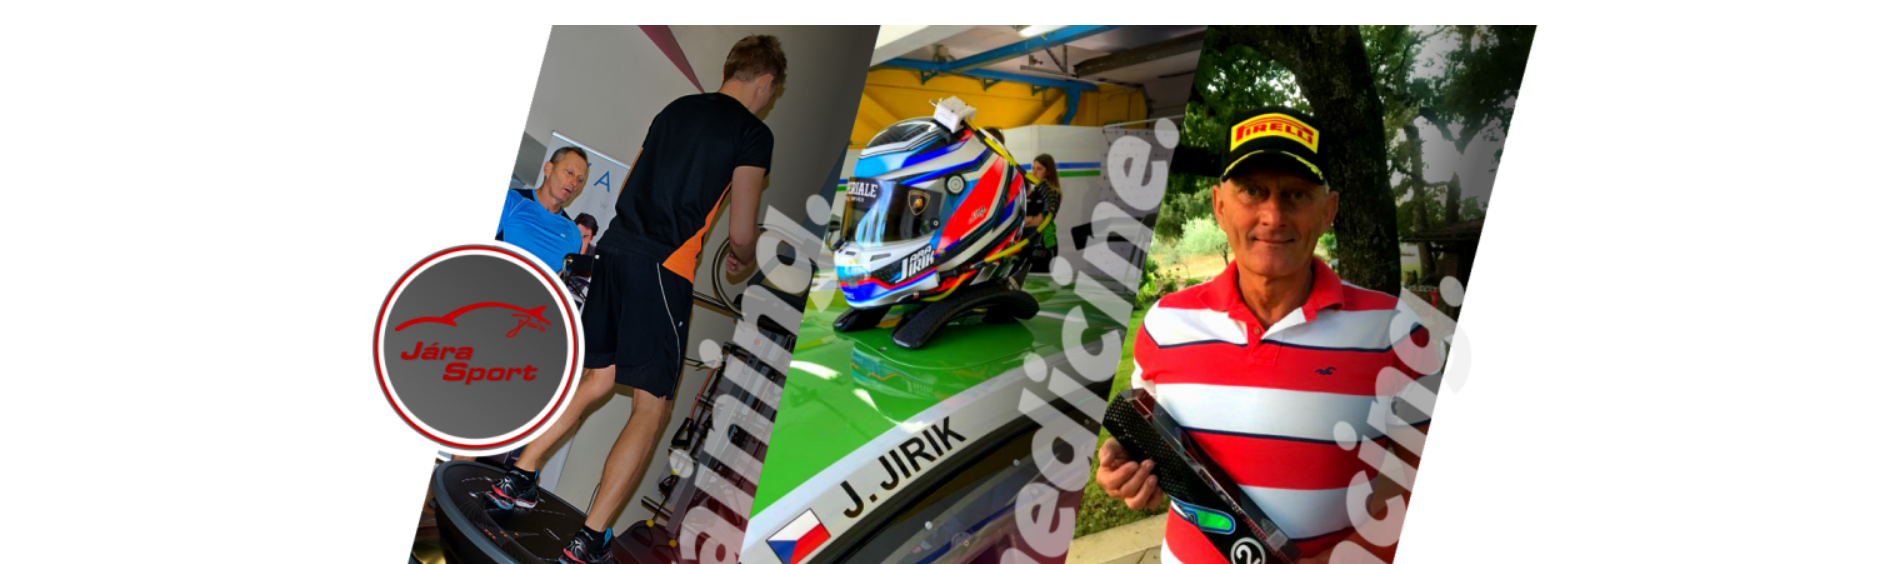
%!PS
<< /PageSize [1902 564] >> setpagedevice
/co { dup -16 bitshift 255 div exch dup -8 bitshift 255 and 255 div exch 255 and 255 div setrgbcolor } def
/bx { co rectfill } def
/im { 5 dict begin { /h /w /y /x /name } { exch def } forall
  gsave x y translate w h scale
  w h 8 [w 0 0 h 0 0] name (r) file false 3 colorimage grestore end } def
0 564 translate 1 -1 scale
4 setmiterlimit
0 0 1902 564 16#FFFFFF bx
(media/1.raw) 372 25 1166 539 im
showpage
